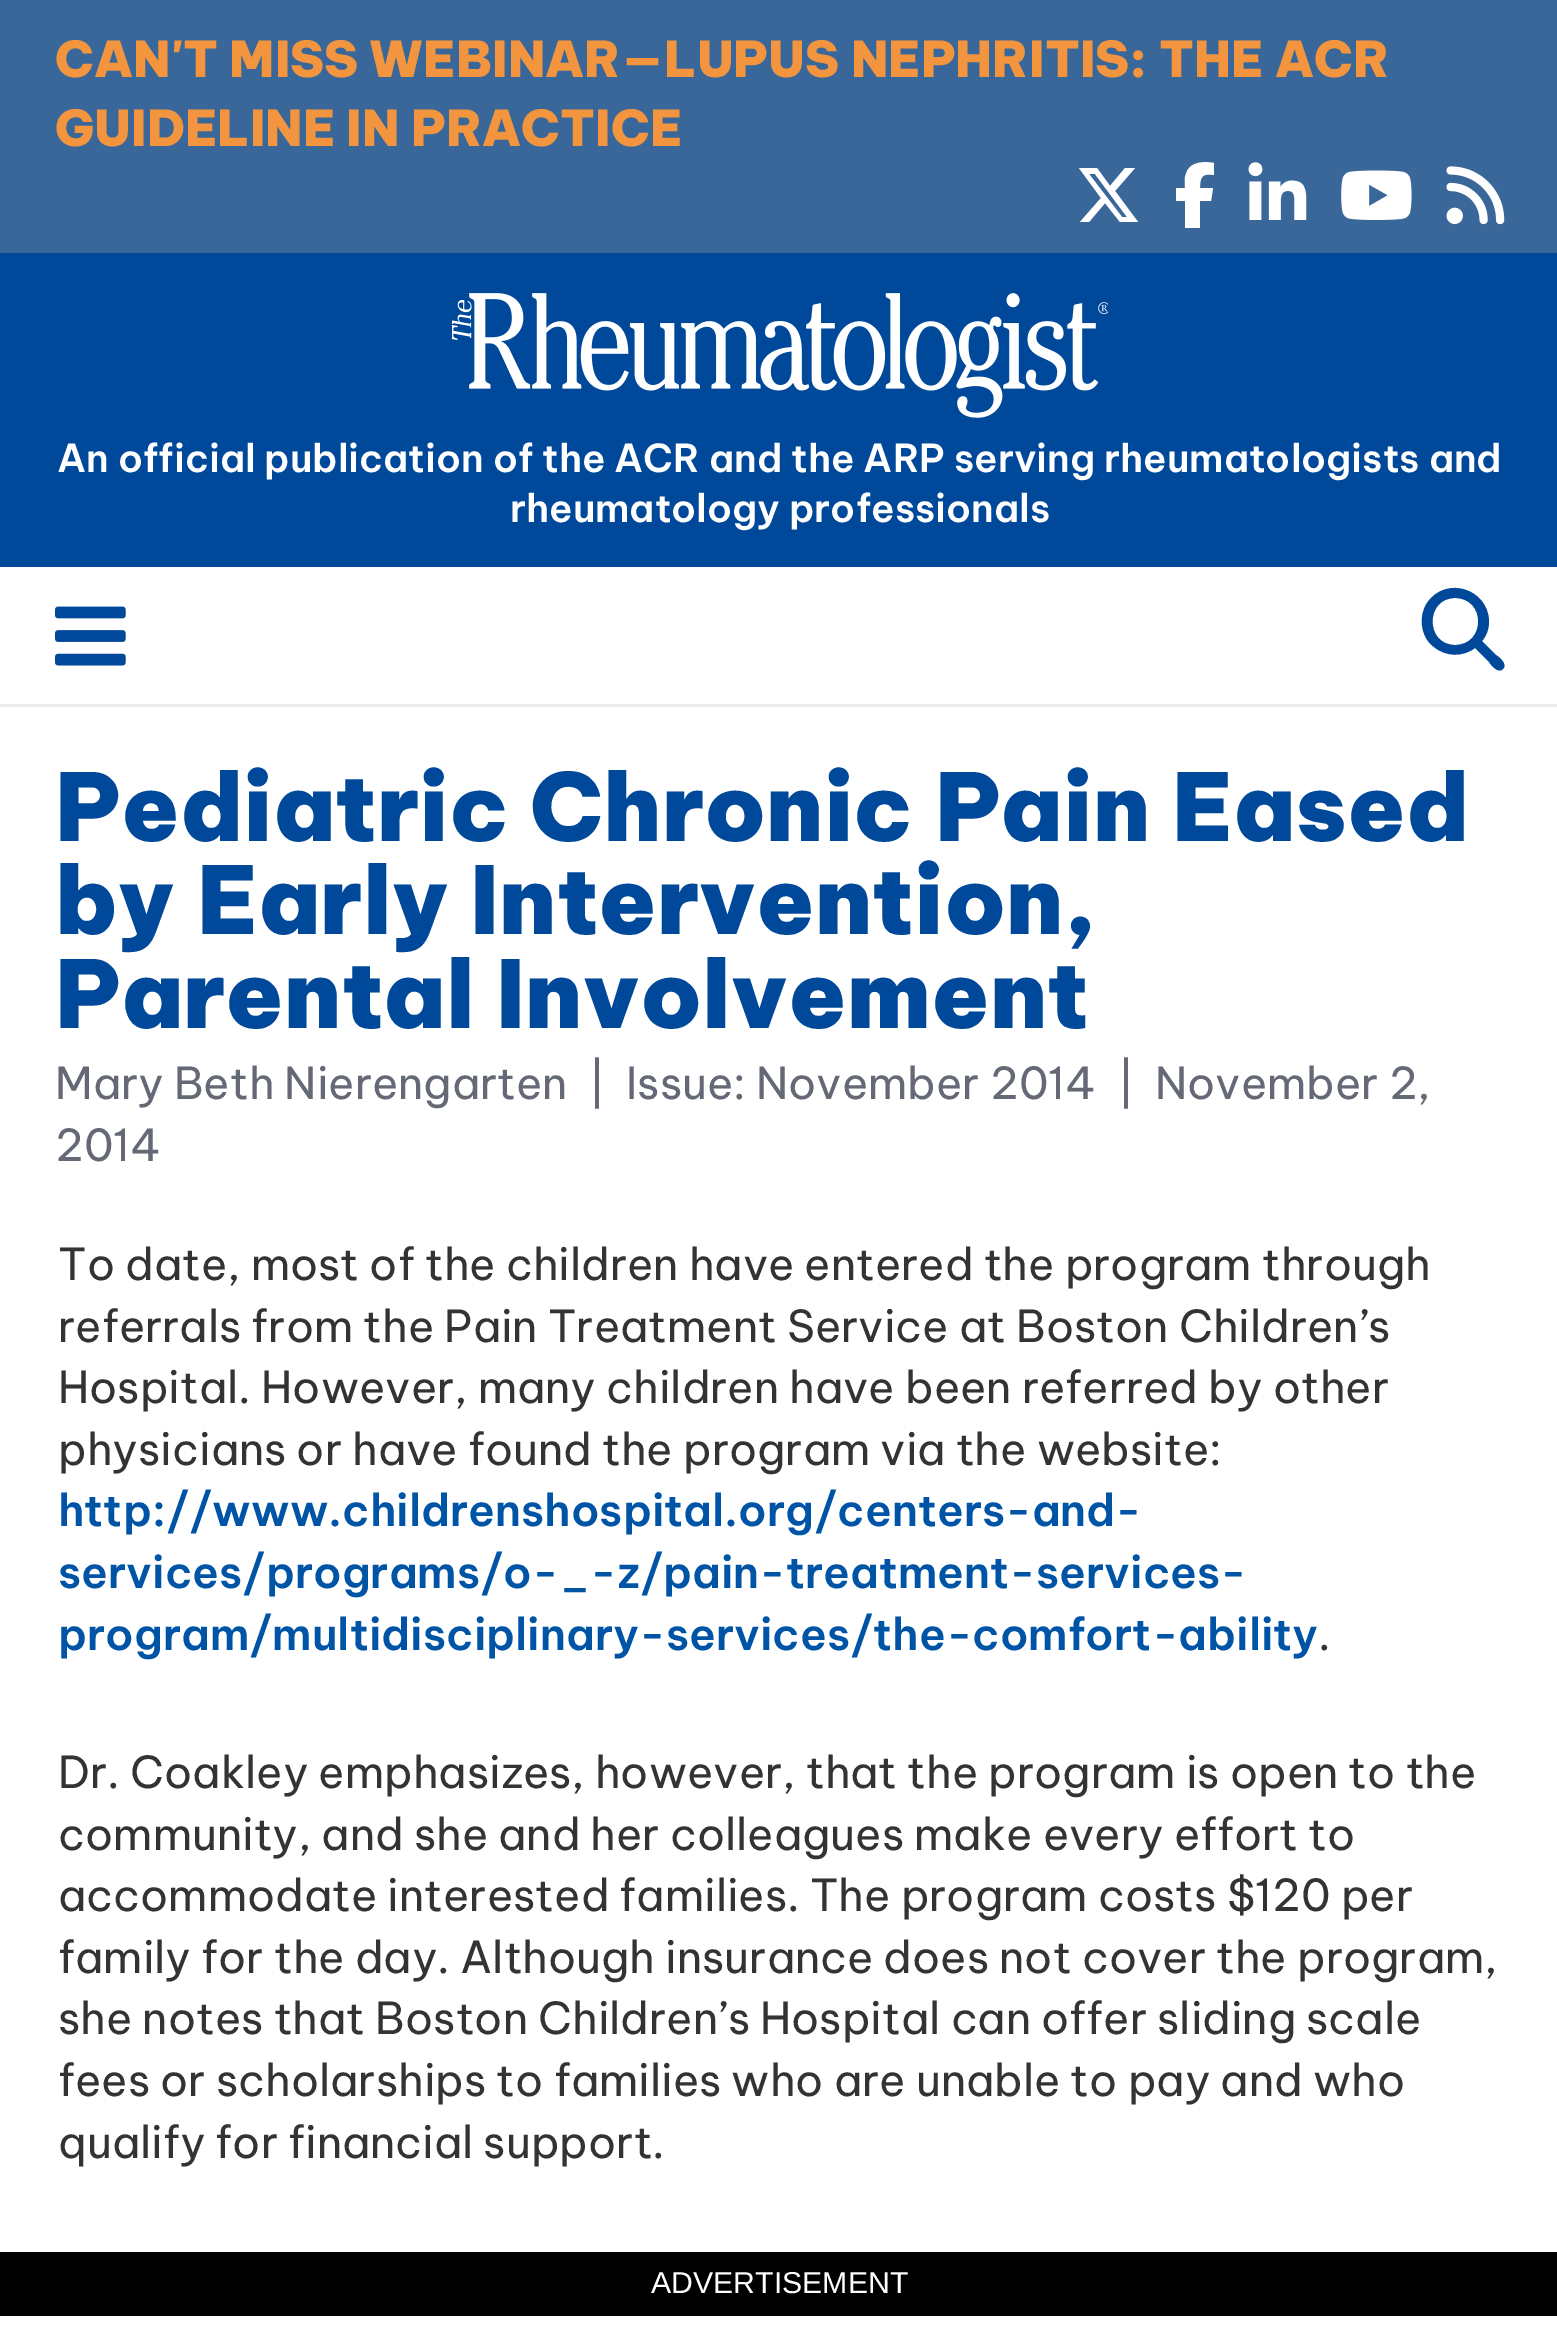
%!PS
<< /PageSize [1557 2335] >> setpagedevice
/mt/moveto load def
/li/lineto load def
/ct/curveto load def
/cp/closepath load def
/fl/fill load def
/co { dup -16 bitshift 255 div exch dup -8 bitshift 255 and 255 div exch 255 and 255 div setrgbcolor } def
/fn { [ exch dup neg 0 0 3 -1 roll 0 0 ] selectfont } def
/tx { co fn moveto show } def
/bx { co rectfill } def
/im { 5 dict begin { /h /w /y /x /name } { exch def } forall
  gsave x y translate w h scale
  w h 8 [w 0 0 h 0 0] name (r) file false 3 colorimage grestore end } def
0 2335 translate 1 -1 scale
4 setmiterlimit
0 0 1557 2335 16#FFFFFF bx
0 0 1557 253 16#3A6799 bx
16#FFFFFF co
1125 168 mt 1135 168 li 1125 168 li 1135 168 li 1115 191 li 1138 222 li 1120 222 li 1105 203 li 1089 222 li 1080 222 li 1101 198 li 1079 168 li 1097 168 li 1110 186 li cp 1122 217 mt 1127 217 li 1122 217 li 1127 217 li 1095 174 li 1089 174 li cp fl
1185 201 mt 1185 228 li 1185 201 li 1185 228 li 1200 228 li 1200 201 li 1211 201 li 1213 188 li 1200 188 li 1200 177 1202 173 1214 175 ct 1214 163 li 1203 161 1189 162 1186 174 ct 1184 178 1185 183 1185 188 ct 1176 188 li 1176 201 li cp fl
(media/1.raw) 1248 162 59 58 im
(media/2.raw) 1341 170 71 50 im
(media/3.raw) 1446 166 59 59 im
0 253 1557 314 16#004899 bx
(media/4.raw) 451 293 657 125 im
0 704 1557 3 16#E9EAEC bx
(media/5.raw) 55 606 71 60 im
16#004899 co
1489 621 mt 1489 629 1487 635 1482 641 ct 1496 655 li 1499 657 1508 664 1503 669 ct 1498 674 1491 665 1489 662 ct 1475 648 li 1463 657 1446 657 1434 647 ct 1427 642 1423 634 1422 625 ct 1421 617 1423 609 1427 603 ct 1446 575 1488 589 1489 621 ct cp 1455 645 mt 1486 645 1486 598 1455 598 ct 1425 598 1425 645 1455 645 ct cp fl
0 2252 1557 64 16#000000 bx
(CAN'T MISS WEBINAR—LUPUS NEPHRITIS: THE ACR) 55 77 /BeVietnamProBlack-Black 49.5 16#F3953F tx
(GUIDELINE IN PRACTICE) 55 146 /BeVietnamProBlack-Black 49.5 16#F3953F tx
(An official publication of the ACR and the ARP serving rheumatologists and) 57 472 /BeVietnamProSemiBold-SemiBold 38.5 16#FFFFFF tx
(rheumatology professionals) 510 522 /BeVietnamProSemiBold-SemiBold 38.5 16#FFFFFF tx
(Pediatric Chronic Pain Eased) 55 841 /BeVietnamProBlack-Black 93.5 16#004899 tx
(by Early Intervention,) 55 934 /BeVietnamProBlack-Black 93.5 16#004899 tx
(Parental Involvement) 55 1028 /BeVietnamProBlack-Black 93.5 16#004899 tx
(Mary Beth Nierengarten) 55 1099 /BeVietnamPro-Regular 44 16#656976 tx
(|) 588 1099 /BeVietnamPro-Regular 44 16#656976 tx
(Issue: November 2014) 626 1099 /BeVietnamPro-Regular 44 16#656976 tx
(|) 1117 1099 /BeVietnamPro-Regular 44 16#656976 tx
(November 2,) 1155 1099 /BeVietnamPro-Regular 44 16#656976 tx
(2014) 55 1161 /BeVietnamPro-Regular 44 16#656976 tx
(To date, most of the children have entered the program through) 58 1280 /BeVietnamPro-Regular 44 16#333333 tx
(referrals from the Pain Treatment Service at Boston Children’s) 58 1342 /BeVietnamPro-Regular 44 16#333333 tx
(Hospital. However, many children have been referred by other) 58 1403 /BeVietnamPro-Regular 44 16#333333 tx
(physicians or have found the program via the website:) 58 1465 /BeVietnamPro-Regular 44 16#333333 tx
(http://www.childrenshospital.org/centers-and-) 58 1526 /BeVietnamProSemiBold-SemiBold 44 16#0054A6 tx
(services/programs/o-_-z/pain-treatment-services-) 58 1588 /BeVietnamProSemiBold-SemiBold 44 16#0054A6 tx
(program/multidisciplinary-services/the-comfort-ability) 58 1650 /BeVietnamProSemiBold-SemiBold 44 16#0054A6 tx
(.) 1318 1650 /BeVietnamPro-Regular 44 16#333333 tx
(Dr. Coakley emphasizes, however, that the program is open to the) 58 1788 /BeVietnamPro-Regular 44 16#333333 tx
(community, and she and her colleagues make every effort to) 58 1850 /BeVietnamPro-Regular 44 16#333333 tx
(accommodate interested families. The program costs $120 per) 58 1911 /BeVietnamPro-Regular 44 16#333333 tx
(family for the day. Although insurance does not cover the program,) 58 1973 /BeVietnamPro-Regular 44 16#333333 tx
(she notes that Boston Children’s Hospital can offer sliding scale) 58 2034 /BeVietnamPro-Regular 44 16#333333 tx
(fees or scholarships to families who are unable to pay and who) 58 2096 /BeVietnamPro-Regular 44 16#333333 tx
(qualify for financial support.) 58 2158 /BeVietnamPro-Regular 44 16#333333 tx
(ADVERTISEMENT) 651 2293 /LiberationSans-Regular 30.25 16#FFFFFF tx
showpage
